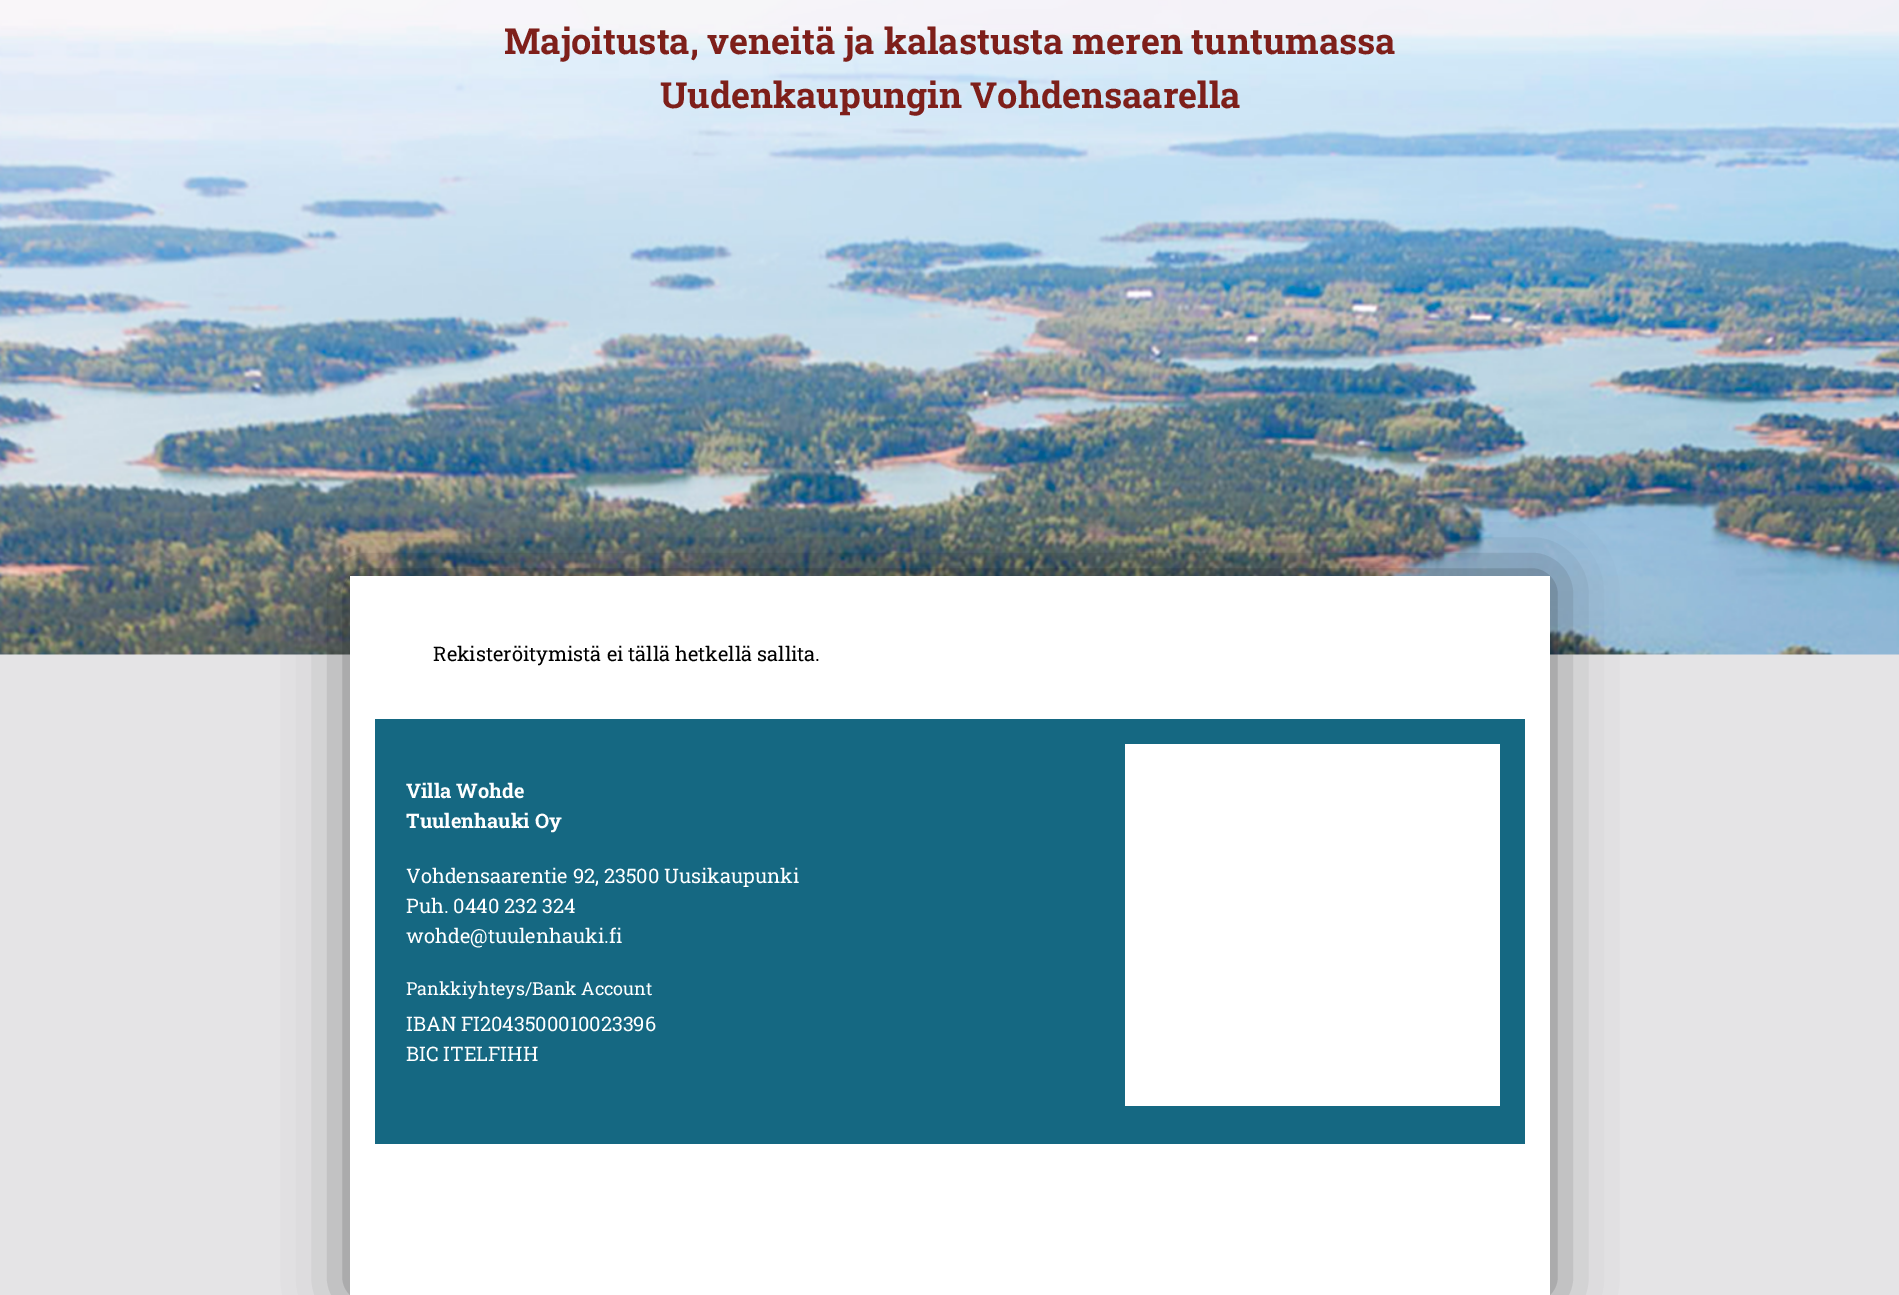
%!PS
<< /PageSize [1899 1295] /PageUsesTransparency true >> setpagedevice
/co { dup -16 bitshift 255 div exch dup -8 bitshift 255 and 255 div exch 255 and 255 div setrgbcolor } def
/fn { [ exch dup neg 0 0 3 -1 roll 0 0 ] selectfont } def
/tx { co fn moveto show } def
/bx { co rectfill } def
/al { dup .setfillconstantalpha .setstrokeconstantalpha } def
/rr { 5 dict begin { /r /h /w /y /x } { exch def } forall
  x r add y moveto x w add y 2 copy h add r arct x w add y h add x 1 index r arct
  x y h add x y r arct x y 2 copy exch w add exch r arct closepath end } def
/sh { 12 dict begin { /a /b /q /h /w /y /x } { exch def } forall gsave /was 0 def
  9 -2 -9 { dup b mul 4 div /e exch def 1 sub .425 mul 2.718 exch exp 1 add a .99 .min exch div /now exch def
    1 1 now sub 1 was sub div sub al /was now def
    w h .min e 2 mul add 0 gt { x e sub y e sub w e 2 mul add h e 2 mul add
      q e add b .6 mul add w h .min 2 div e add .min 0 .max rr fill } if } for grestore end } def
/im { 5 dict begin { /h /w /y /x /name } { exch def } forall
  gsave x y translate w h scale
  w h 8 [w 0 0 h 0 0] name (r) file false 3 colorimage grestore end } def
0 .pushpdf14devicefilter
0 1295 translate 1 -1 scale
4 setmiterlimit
0 0 1899 1295 16#E5E4E6 bx
(media/1.raw) 0 0 1899 655 im
16#000000 co
350 576 1200 719 0 31 .5 sh
350 576 1200 719 16#FFFFFF bx
375 719 1150 425 16#156882 bx
1125 744 375 362 16#FFFFFF bx
(Majoitusta, veneitä ja kalastusta meren tuntumassa) 504 54 /RobotoSlab-Bold 36 16#7E1F1A tx
(Uudenkaupungin Vohdensaarella) 660 108 /RobotoSlab-Bold 36 16#7E1F1A tx
(Rekisteröitymistä ei tällä hetkellä sallita.) 433 661 /RobotoSlab-Regular 20 16#000000 tx
(Villa Wohde) 406 798 /RobotoSlab-Bold 20 16#FFFFFF tx
(Tuulenhauki Oy) 406 828 /RobotoSlab-Bold 20 16#FFFFFF tx
(Vohdensaarentie 92, 23500 Uusikaupunki) 406 883 /RobotoSlab-Regular 20 16#FFFFFF tx
(Puh. 0440 232 324) 406 913 /RobotoSlab-Regular 20 16#FFFFFF tx
(wohde@tuulenhauki.fi) 406 943 /RobotoSlab-Regular 20 16#FFFFFF tx
(Pankkiyhteys/Bank Account) 406 995 /RobotoSlab-Regular 18 16#FFFFFF tx
(IBAN FI2043500010023396) 406 1031 /RobotoSlab-Regular 20 16#FFFFFF tx
(BIC ITELFIHH) 406 1061 /RobotoSlab-Regular 20 16#FFFFFF tx
.poppdf14devicefilter showpage
